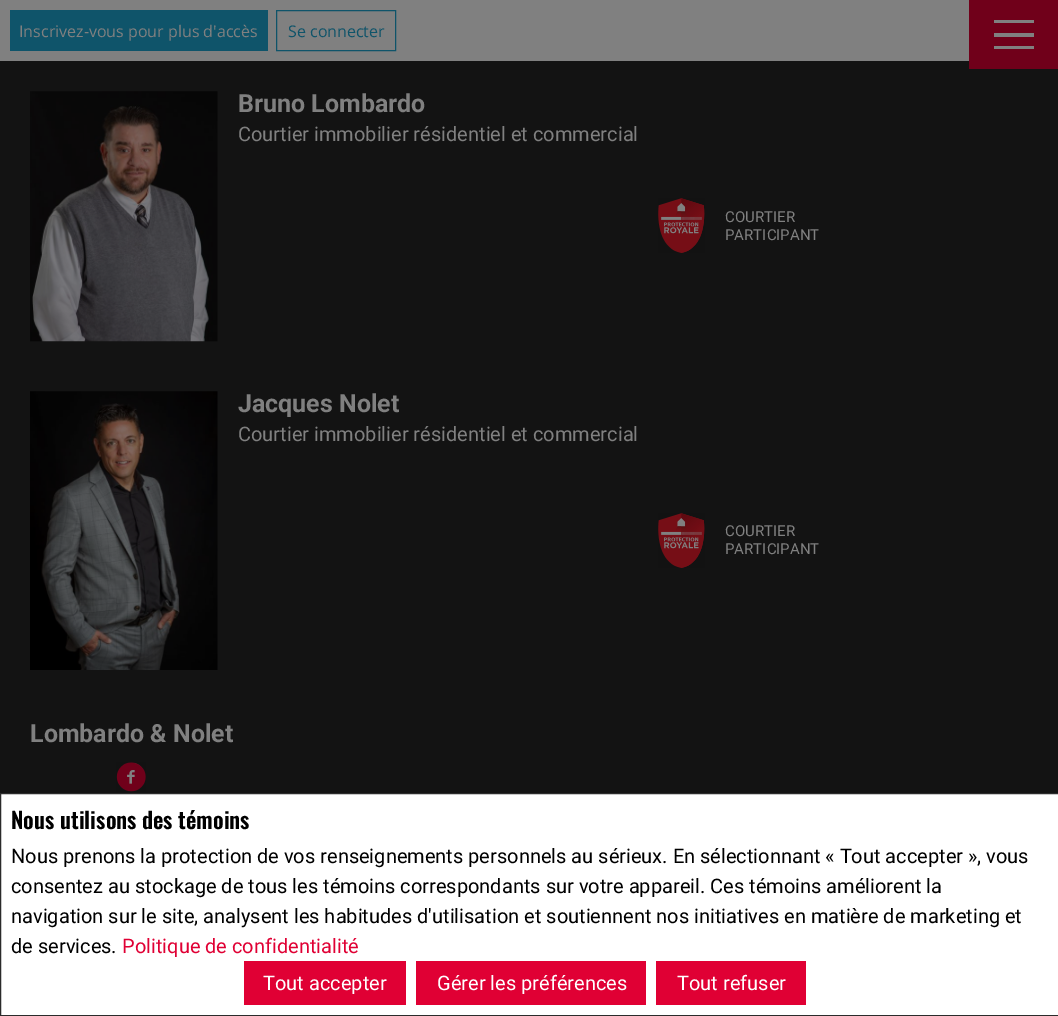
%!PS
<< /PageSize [1058 1016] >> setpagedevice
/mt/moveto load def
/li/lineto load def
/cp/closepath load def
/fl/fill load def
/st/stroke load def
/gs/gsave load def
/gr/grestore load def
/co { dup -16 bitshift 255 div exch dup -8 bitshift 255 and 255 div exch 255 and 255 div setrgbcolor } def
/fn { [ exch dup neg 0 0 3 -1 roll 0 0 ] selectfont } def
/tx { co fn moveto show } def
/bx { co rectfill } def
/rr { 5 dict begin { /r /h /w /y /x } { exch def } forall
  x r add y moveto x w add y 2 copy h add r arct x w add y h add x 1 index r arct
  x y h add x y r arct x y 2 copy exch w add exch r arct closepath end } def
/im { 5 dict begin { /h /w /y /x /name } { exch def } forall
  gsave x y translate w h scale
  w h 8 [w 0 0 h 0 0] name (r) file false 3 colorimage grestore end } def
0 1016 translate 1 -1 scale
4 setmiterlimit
0 0 1058 1016 16#808080 bx
10 10 258 41 16#0F546A bx
276.5 10.5 119 40 rectstroke
0 61 1058 732 16#131313 bx
969 0 89 69 16#70001A bx
994 20 40 3 16#808080 bx
994 33 40 4 16#808080 bx
994 46 40 3 16#808080 bx
(media/1.raw) 30 91 188 251 im
(media/2.raw) 658 198 47 55 im
(media/3.raw) 30 391 188 279 im
(media/4.raw) 658 513 47 55 im
120 763 24 25 12 rr fl
(media/5.raw) 116 762 30 30 im
16#FFFFFF co
.5 793.5 mt 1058.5 793.5 li 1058.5 1015.5 li .5 1015.5 li cp gs fl gr
16#2B2B2B co
st
244 961 162 44 16#E00034 bx
416 961 230 44 16#E00034 bx
656 961 150 44 16#E00034 bx
(Inscrivez-vous pour plus d'accès) 19 37 /OpenSans-Regular 16 16#808080 tx
(Se connecter) 288 37 /OpenSans-Regular 16 16#0F546A tx
(Bruno Lombardo) 238 112 /Roboto-Bold 25 16#808080 tx
(Courtier immobilier résidentiel et commercial) 238 141 /Roboto-Regular 20 16#808080 tx
(COURTIER) 725 222 /Roboto-Regular 15 16#808080 tx
(PARTICIPANT) 725 240 /Roboto-Regular 15 16#808080 tx
(Jacques Nolet) 238 412 /Roboto-Bold 25 16#808080 tx
(Courtier immobilier résidentiel et commercial) 238 441 /Roboto-Regular 20 16#808080 tx
(COURTIER) 725 536 /Roboto-Regular 15 16#808080 tx
(PARTICIPANT) 725 554 /Roboto-Regular 15 16#808080 tx
(Lombardo & Nolet) 30 742 /Roboto-Bold 25 16#808080 tx
(Nous utilisons des témoins) 11 829 /Oswald-SemiBold 22.5 16#000000 tx
(Nous prenons la protection de vos renseignements personnels au sérieux. En sélectionnant « Tout accepter », vous) 11 863 /Roboto-Regular 20 16#000000 tx
(consentez au stockage de tous les témoins correspondants sur votre appareil. Ces témoins améliorent la) 11 893 /Roboto-Regular 20 16#000000 tx
(navigation sur le site, analysent les habitudes d'utilisation et soutiennent nos initiatives en matière de marketing et) 11 923 /Roboto-Regular 20 16#000000 tx
(de services.) 11 953 /Roboto-Regular 20 16#000000 tx
(Politique de confidentialité) 122 953 /Roboto-Regular 20 16#E00034 tx
(Tout accepter) 263 990 /Roboto-Regular 20 16#FFFFFF tx
(Gérer les préférences) 437 990 /Roboto-Regular 20 16#FFFFFF tx
(Tout refuser) 677 990 /Roboto-Regular 20 16#FFFFFF tx
showpage
